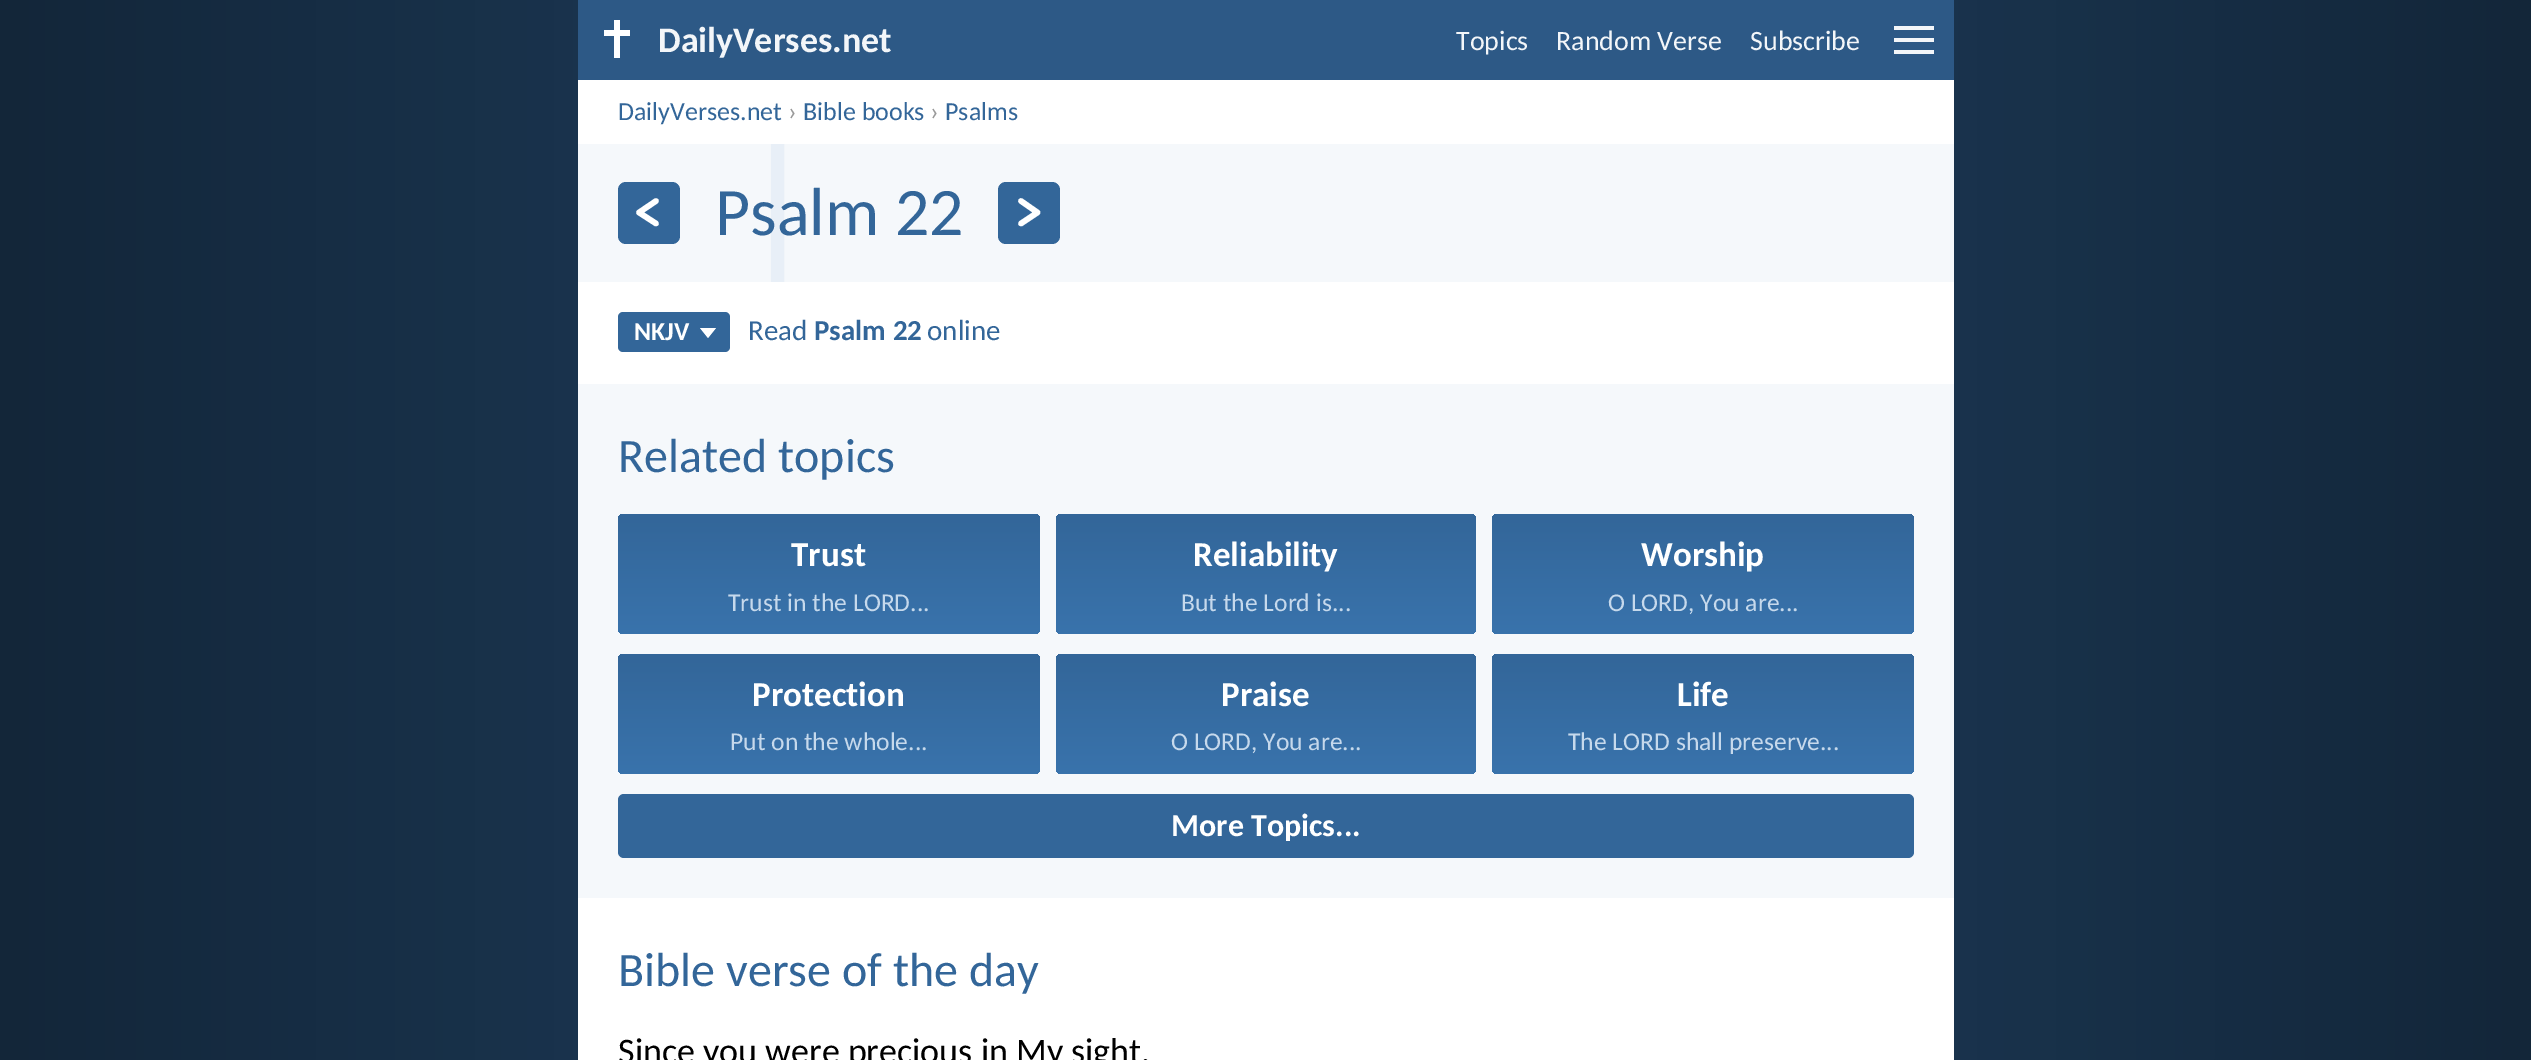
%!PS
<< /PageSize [2531 1060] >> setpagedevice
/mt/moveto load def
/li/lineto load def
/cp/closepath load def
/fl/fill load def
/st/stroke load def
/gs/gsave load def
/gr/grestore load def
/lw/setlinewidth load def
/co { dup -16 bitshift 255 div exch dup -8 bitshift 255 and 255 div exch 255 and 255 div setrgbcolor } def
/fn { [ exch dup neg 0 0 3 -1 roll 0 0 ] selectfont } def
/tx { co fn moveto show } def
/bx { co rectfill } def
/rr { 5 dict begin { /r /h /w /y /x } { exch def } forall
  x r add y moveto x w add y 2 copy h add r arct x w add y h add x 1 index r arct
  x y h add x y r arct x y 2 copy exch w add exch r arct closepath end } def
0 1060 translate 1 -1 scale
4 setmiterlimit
0 0 2531 1060 16#FFFFFF bx
gs 0 0 mt 2531 0 li 2531 1060 li 0 1060 li cp clip newpath
<< /ShadingType 2 /ColorSpace /DeviceRGB /Coords [0 530 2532 530] /Extend [true true] /Function << /FunctionType 3 /Domain [0 1] /Functions [<< /FunctionType 2 /Domain [0 1] /C0 [.075 .149 .224] /C1 [.098 .2 .302] /N 1 >> << /FunctionType 2 /Domain [0 1] /C0 [.098 .2 .302] /C1 [.098 .2 .302] /N 1 >> << /FunctionType 2 /Domain [0 1] /C0 [.098 .2 .302] /C1 [.075 .149 .224] /N 1 >>] /Bounds [.23 .77] /Encode [0 1 0 1 0 1] >> >> shfill gr
578 0 1376 80 16#2D5986 bx
614 20 6 38 16#FFFFFF bx
604 30 26 6 16#FFFFFF bx
1894 26 40 4 16#F3F6F9 bx
1894 38 40 4 16#F3F6F9 bx
1894 50 40 4 16#F3F6F9 bx
578 80 1376 980 16#FFFFFF bx
gs 578 144 mt 1954 144 li 1954 282 li 578 282 li cp clip newpath
<< /ShadingType 2 /ColorSpace /DeviceRGB /Coords [578 213 1954 213] /Extend [true true] /Function << /FunctionType 3 /Domain [0 1] /Functions [<< /FunctionType 2 /Domain [0 1] /C0 [.961 .973 .984] /C1 [.961 .973 .984] /N 1 >> << /FunctionType 2 /Domain [0 1] /C0 [.91 .937 .969] /C1 [.91 .937 .969] /N 1 >> << /FunctionType 2 /Domain [0 1] /C0 [.961 .973 .984] /C1 [.961 .973 .984] /N 1 >>] /Bounds [.14 .15] /Encode [0 1 0 1 0 1] >> >> shfill gr
16#336699 co
618 182 62 62 8 rr fl
16#FFFFFF co
5.6 lw
1 setlinecap
656 201 mt 639 212.5 li 639 212.5 mt 656 223.5 li st
16#336699 co
998 182 62 62 8 rr fl
16#FFFFFF co
1021 201 mt 1037.5 212.5 li 1037.5 212.5 mt 1021 223.5 li st
16#336699 co
618 312 112 40 5 rr fl
16#FFFFFF co
700 328 mt 716 328 li 708 338 li cp fl
578 384 1376 514 16#F5F8FB bx
gs 618 514 422 120 6 rr clip newpath
<< /ShadingType 2 /ColorSpace /DeviceRGB /Coords [829 514 829 634] /Extend [true true] /Function << /FunctionType 2 /Domain [0 1] /C0 [.2 .4 .6] /C1 [.224 .451 .675] /N 1 >> >> shfill gr
gs 1056 514 420 120 6 rr clip newpath
<< /ShadingType 2 /ColorSpace /DeviceRGB /Coords [1266 514 1266 634] /Extend [true true] /Function << /FunctionType 2 /Domain [0 1] /C0 [.2 .4 .6] /C1 [.224 .451 .675] /N 1 >> >> shfill gr
gs 1492 514 422 120 6 rr clip newpath
<< /ShadingType 2 /ColorSpace /DeviceRGB /Coords [1703 514 1703 634] /Extend [true true] /Function << /FunctionType 2 /Domain [0 1] /C0 [.2 .4 .6] /C1 [.224 .451 .675] /N 1 >> >> shfill gr
gs 618 654 422 120 6 rr clip newpath
<< /ShadingType 2 /ColorSpace /DeviceRGB /Coords [829 654 829 774] /Extend [true true] /Function << /FunctionType 2 /Domain [0 1] /C0 [.2 .4 .6] /C1 [.224 .451 .675] /N 1 >> >> shfill gr
gs 1056 654 420 120 6 rr clip newpath
<< /ShadingType 2 /ColorSpace /DeviceRGB /Coords [1266 654 1266 774] /Extend [true true] /Function << /FunctionType 2 /Domain [0 1] /C0 [.2 .4 .6] /C1 [.224 .451 .675] /N 1 >> >> shfill gr
gs 1492 654 422 120 6 rr clip newpath
<< /ShadingType 2 /ColorSpace /DeviceRGB /Coords [1703 654 1703 774] /Extend [true true] /Function << /FunctionType 2 /Domain [0 1] /C0 [.2 .4 .6] /C1 [.224 .451 .675] /N 1 >> >> shfill gr
16#336699 co
618 794 1296 64 6 rr fl
(DailyVerses.net) 658 52 /Carlito-Bold 36 16#F3F6F9 tx
(Topics) 1456 50 /Carlito-Regular 28 16#F3F6F9 tx
(Random Verse) 1556 50 /Carlito-Regular 28 16#F3F6F9 tx
(Subscribe) 1750 50 /Carlito-Regular 28 16#F3F6F9 tx
(DailyVerses.net) 618 120 /Carlito-Regular 26 16#336699 tx
(›) 788 120 /Carlito-Regular 26 16#999999 tx
(Bible books) 803 120 /Carlito-Regular 26 16#336699 tx
(›) 930 120 /Carlito-Regular 26 16#999999 tx
(Psalms) 945 120 /Carlito-Regular 26 16#336699 tx
(Psalm 22) 715 235 /Carlito-Regular 68 16#336699 tx
(NKJV) 634 340 /Carlito-Bold 26 16#FFFFFF tx
(Read) 748 340 /Carlito-Regular 29 16#336699 tx
(Psalm 22) 814 340 /Carlito-Bold 29 16#336699 tx
(online) 927 340 /Carlito-Regular 29 16#336699 tx
(Related topics) 618 472 /Carlito-Regular 48 16#336699 tx
(Trust) 791 566 /Carlito-Bold 35 16#FFFFFF tx
(Trust in the LORD...) 728 611 /Carlito-Regular 25.6 16#C6D9EC tx
(Reliability) 1193 566 /Carlito-Bold 35 16#FFFFFF tx
(But the Lord is...) 1181 611 /Carlito-Regular 25.6 16#C6D9EC tx
(Worship) 1641 566 /Carlito-Bold 35 16#FFFFFF tx
(O LORD, You are...) 1608 611 /Carlito-Regular 25.6 16#C6D9EC tx
(Protection) 752 706 /Carlito-Bold 35 16#FFFFFF tx
(Put on the whole...) 730 750 /Carlito-Regular 25.6 16#C6D9EC tx
(Praise) 1221 706 /Carlito-Bold 35 16#FFFFFF tx
(O LORD, You are...) 1171 750 /Carlito-Regular 25.6 16#C6D9EC tx
(Life) 1677 706 /Carlito-Bold 35 16#FFFFFF tx
(The LORD shall preserve...) 1568 750 /Carlito-Regular 25.6 16#C6D9EC tx
(More Topics...) 1171 836 /Carlito-Bold 32 16#FFFFFF tx
(Bible verse of the day) 618 986 /Carlito-Regular 48 16#336699 tx
(Since you were precious in My sight,) 618 1063 /Carlito-Regular 36 16#000000 tx
showpage
